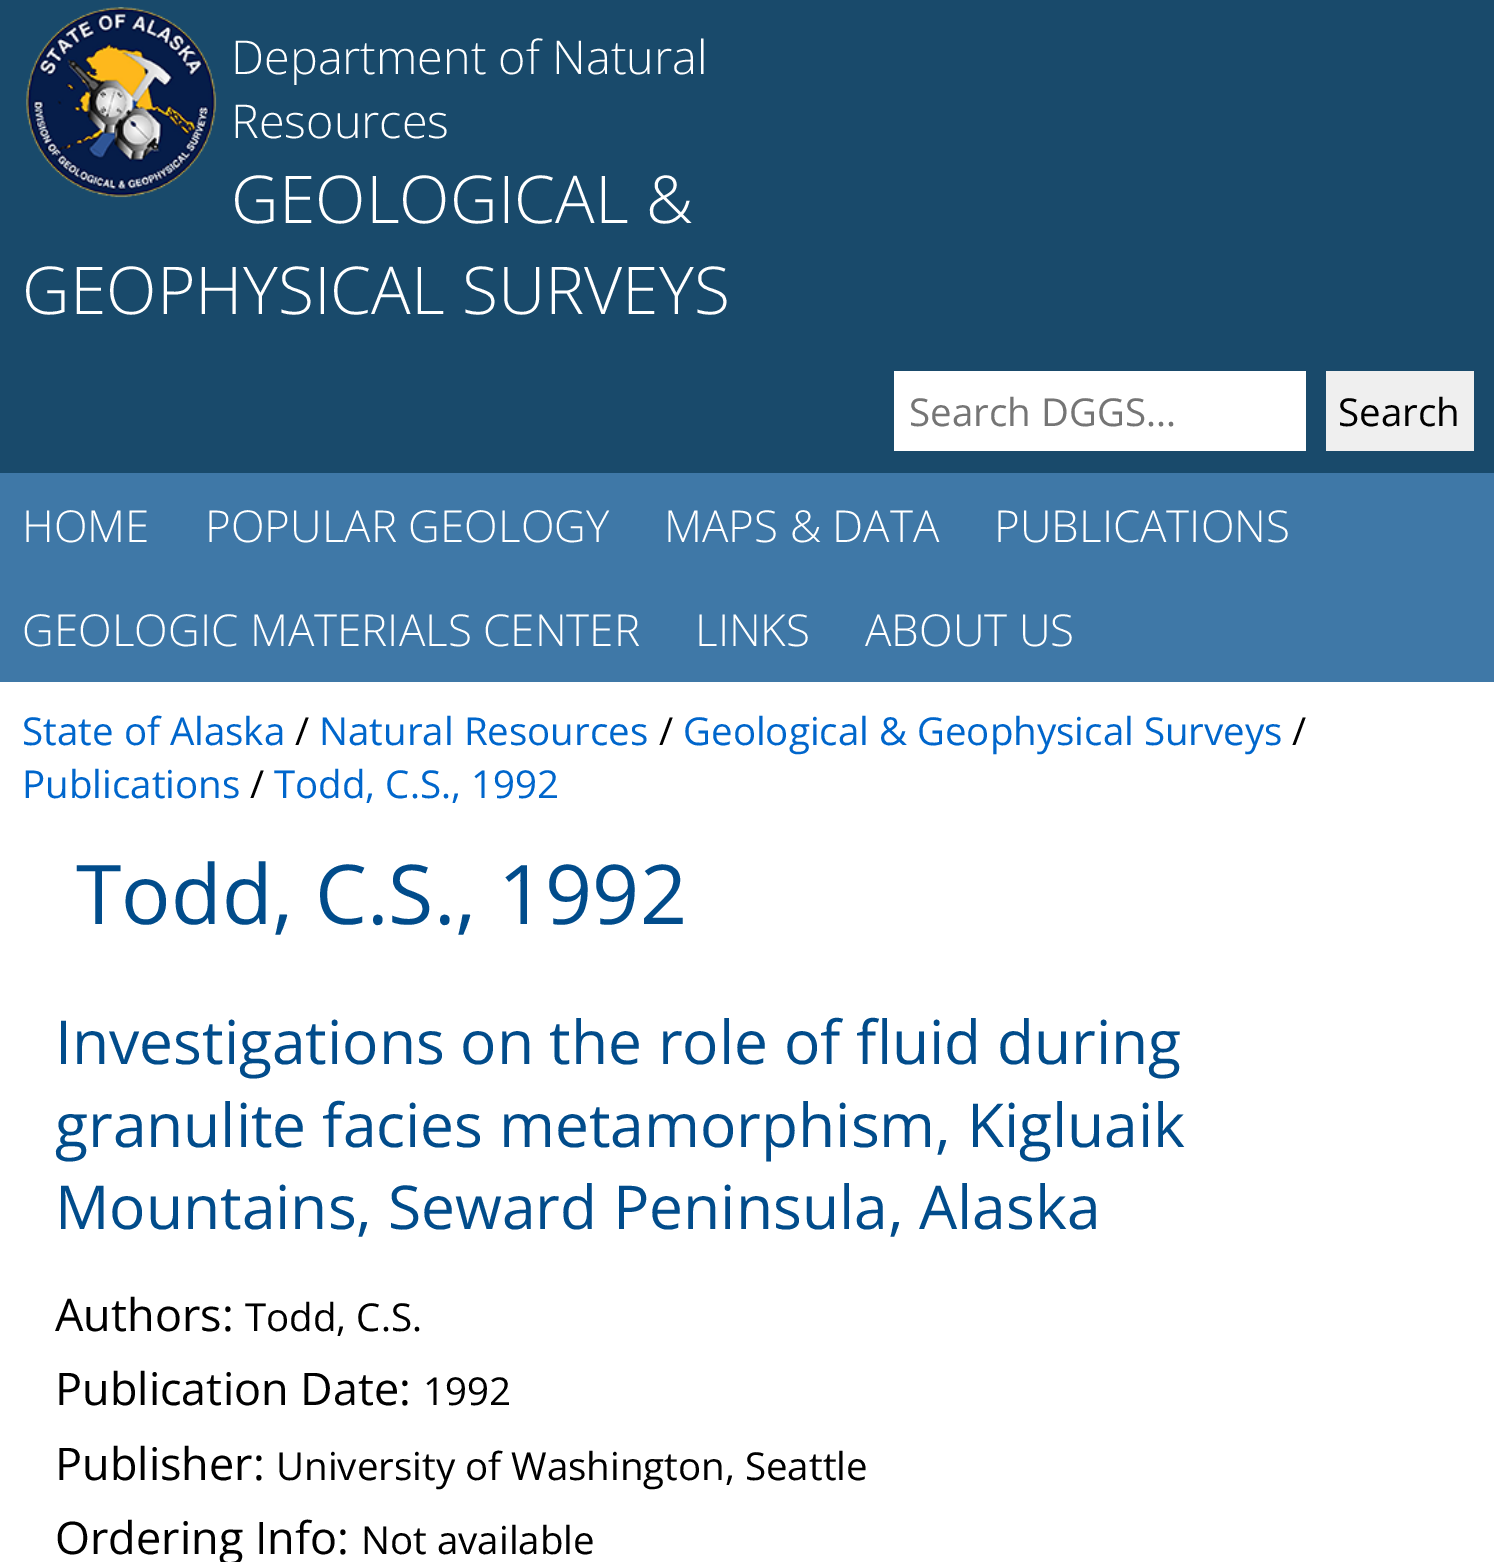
%!PS
<< /PageSize [1494 1562] >> setpagedevice
/co { dup -16 bitshift 255 div exch dup -8 bitshift 255 and 255 div exch 255 and 255 div setrgbcolor } def
/fn { [ exch dup neg 0 0 3 -1 roll 0 0 ] selectfont } def
/tx { co fn moveto show } def
/bx { co rectfill } def
/im { 5 dict begin { /h /w /y /x /name } { exch def } forall
  gsave x y translate w h scale
  w h 8 [w 0 0 h 0 0] name (r) file false 3 colorimage grestore end } def
0 1562 translate 1 -1 scale
4 setmiterlimit
0 0 1494 1562 16#194A6B bx
(media/1.raw) 26 7 191 191 im
894 371 412 80 16#FFFFFF bx
1326 371 148 80 16#EFEFEF bx
0 473 1494 209 16#3F78A7 bx
0 682 1494 880 16#FFFFFF bx
(Department of Natural) 231 74 /OpenSans-Light 46.75 16#FFFFFF tx
(Resources) 231 138 /OpenSans-Light 46.75 16#FFFFFF tx
(GEOLOGICAL &) 231 223 /OpenSans-Light 66 16#FFFFFF tx
(GEOPHYSICAL SURVEYS) 22 314 /OpenSans-Light 66 16#FFFFFF tx
(Search DGGS...) 909 426 /OpenSans-Regular 38.5 16#757575 tx
(Search) 1338 426 /OpenSans-Regular 38.5 16#000000 tx
(HOME) 22 542 /OpenSans-Light 44 16#FFFFFF tx
(POPULAR GEOLOGY) 205 542 /OpenSans-Light 44 16#FFFFFF tx
(MAPS & DATA) 664 542 /OpenSans-Light 44 16#FFFFFF tx
(PUBLICATIONS) 994 542 /OpenSans-Light 44 16#FFFFFF tx
(GEOLOGIC MATERIALS CENTER) 22 646 /OpenSans-Light 44 16#FFFFFF tx
(LINKS) 695 646 /OpenSans-Light 44 16#FFFFFF tx
(ABOUT US) 865 646 /OpenSans-Light 44 16#FFFFFF tx
(State of Alaska) 22 745 /OpenSans-Regular 38.5 16#0066CC tx
(/) 295 745 /OpenSans-Regular 38.5 16#000000 tx
(Natural Resources) 319 745 /OpenSans-Regular 38.5 16#0066CC tx
(/) 659 745 /OpenSans-Regular 38.5 16#000000 tx
(Geological & Geophysical Surveys) 683 745 /OpenSans-Regular 38.5 16#0066CC tx
(/) 1292 745 /OpenSans-Regular 38.5 16#000000 tx
(Publications) 22 798 /OpenSans-Regular 38.5 16#0066CC tx
(/) 250 798 /OpenSans-Regular 38.5 16#000000 tx
(Todd, C.S., 1992) 274 798 /OpenSans-Regular 38.5 16#0066CC tx
(Todd, C.S., 1992) 76 924 /OpenSans-Regular 82.5 16#014C8B tx
(Investigations on the role of fluid during) 55 1064 /OpenSans-Regular 60.5 16#014C8B tx
(granulite facies metamorphism, Kigluaik) 55 1147 /OpenSans-Regular 60.5 16#014C8B tx
(Mountains, Seward Peninsula, Alaska) 55 1229 /OpenSans-Regular 60.5 16#014C8B tx
(Authors:) 55 1331 /OpenSans-Regular 45 16#000000 tx
(Todd, C.S.) 245 1331 /OpenSans-Regular 38.5 16#000000 tx
(Publication Date:) 55 1405 /OpenSans-Regular 45 16#000000 tx
(1992) 423 1405 /OpenSans-Regular 38.5 16#000000 tx
(Publisher:) 55 1480 /OpenSans-Regular 45 16#000000 tx
(University of Washington, Seattle) 276 1480 /OpenSans-Regular 38.5 16#000000 tx
(Ordering Info:) 55 1554 /OpenSans-Regular 45 16#000000 tx
(Not available) 361 1554 /OpenSans-Regular 38.5 16#000000 tx
showpage
